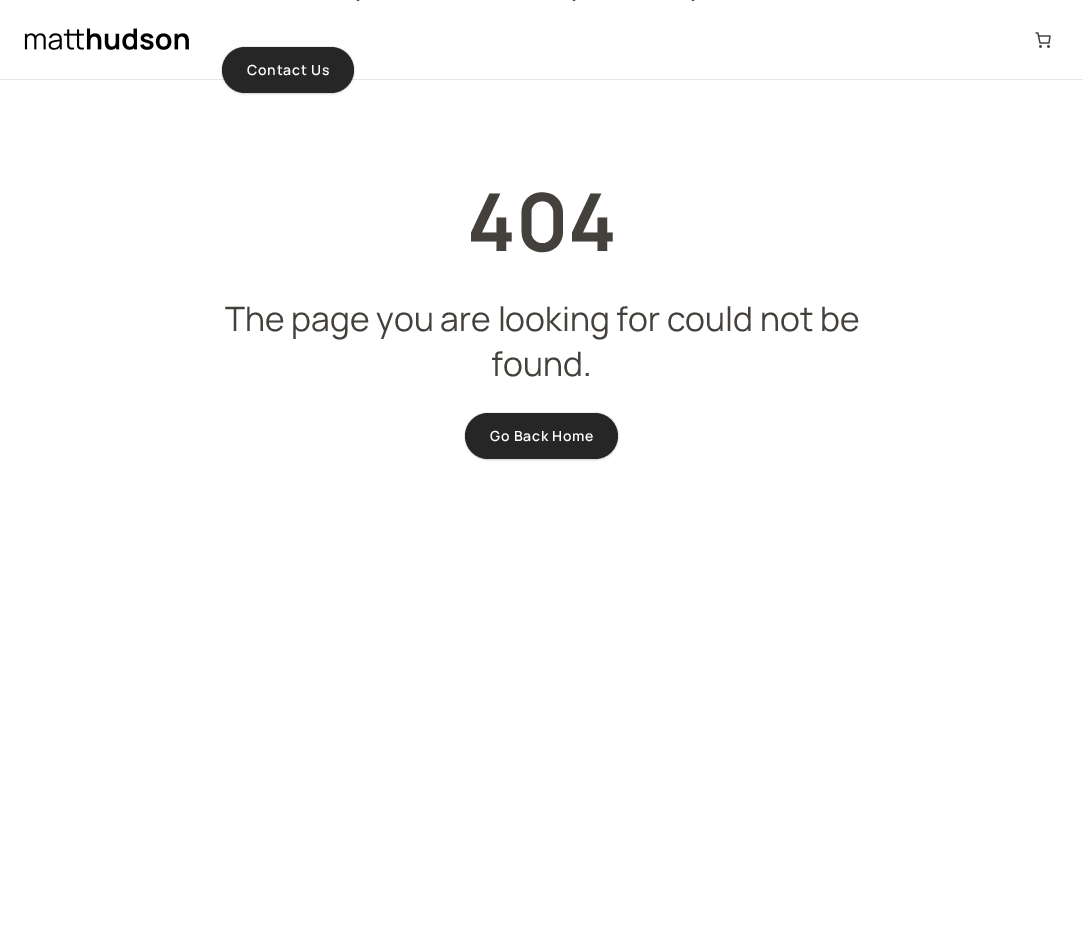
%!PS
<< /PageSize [1083 942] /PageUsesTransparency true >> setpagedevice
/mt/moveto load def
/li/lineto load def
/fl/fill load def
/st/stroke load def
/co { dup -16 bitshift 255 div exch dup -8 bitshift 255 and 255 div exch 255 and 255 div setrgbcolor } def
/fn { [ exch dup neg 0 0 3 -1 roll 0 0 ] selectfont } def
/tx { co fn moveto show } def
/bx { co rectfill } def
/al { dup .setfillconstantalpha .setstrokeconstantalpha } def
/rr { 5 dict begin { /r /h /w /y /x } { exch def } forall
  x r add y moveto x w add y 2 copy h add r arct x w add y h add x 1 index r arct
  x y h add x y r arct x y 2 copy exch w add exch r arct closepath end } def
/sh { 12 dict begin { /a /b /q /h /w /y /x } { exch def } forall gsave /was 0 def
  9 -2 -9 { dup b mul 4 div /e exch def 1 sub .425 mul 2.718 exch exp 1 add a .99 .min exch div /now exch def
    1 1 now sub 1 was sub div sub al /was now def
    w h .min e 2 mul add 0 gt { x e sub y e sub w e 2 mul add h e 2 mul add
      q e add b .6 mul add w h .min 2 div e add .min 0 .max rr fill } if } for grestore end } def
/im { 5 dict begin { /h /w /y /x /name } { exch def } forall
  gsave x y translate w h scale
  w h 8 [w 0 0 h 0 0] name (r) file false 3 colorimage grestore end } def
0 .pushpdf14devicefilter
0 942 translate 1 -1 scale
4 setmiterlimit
0 0 1083 942 16#FFFFFF bx
0 79 1083 1 16#E6E6E6 bx
(media/1.raw) 24 28 165 22 im
(media/2.raw) 1035 32 16 16 im
16#44403C co
355 -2 mt 358 .5 li 361.5 -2 li st
571 -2 mt 574 .5 li 577.5 -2 li st
690 -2 mt 693 .5 li 696.5 -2 li st
0.08 al
16#191C21 co
221.5 46.5 133 47 23.5 rr st
1 al
16#000000 co
223 50 130 44 22 1.5 .1 sh
16#262626 co
222 47 132 46 23 rr fl
16#EDEDED co
464.5 412.5 154 47 23.5 rr st
16#000000 co
466 416 151 44 22 1.5 .1 sh
16#262626 co
465 413 153 46 23 rr fl
/Manrope-SemiBold 14 fn
16#FFFFFF co
247 75 mt .75 0 (Contact Us) ashow
(404) 467 251 /Manrope-Bold 80 16#44403C tx
(The page you are looking for could not be) 225 331 /Manrope-Regular 33.6 16#44403C tx
(found.) 491 376 /Manrope-Regular 33.6 16#44403C tx
/Manrope-SemiBold 14 fn
16#FFFFFF co
490 441 mt .75 0 (Go Back Home) ashow
.poppdf14devicefilter showpage
